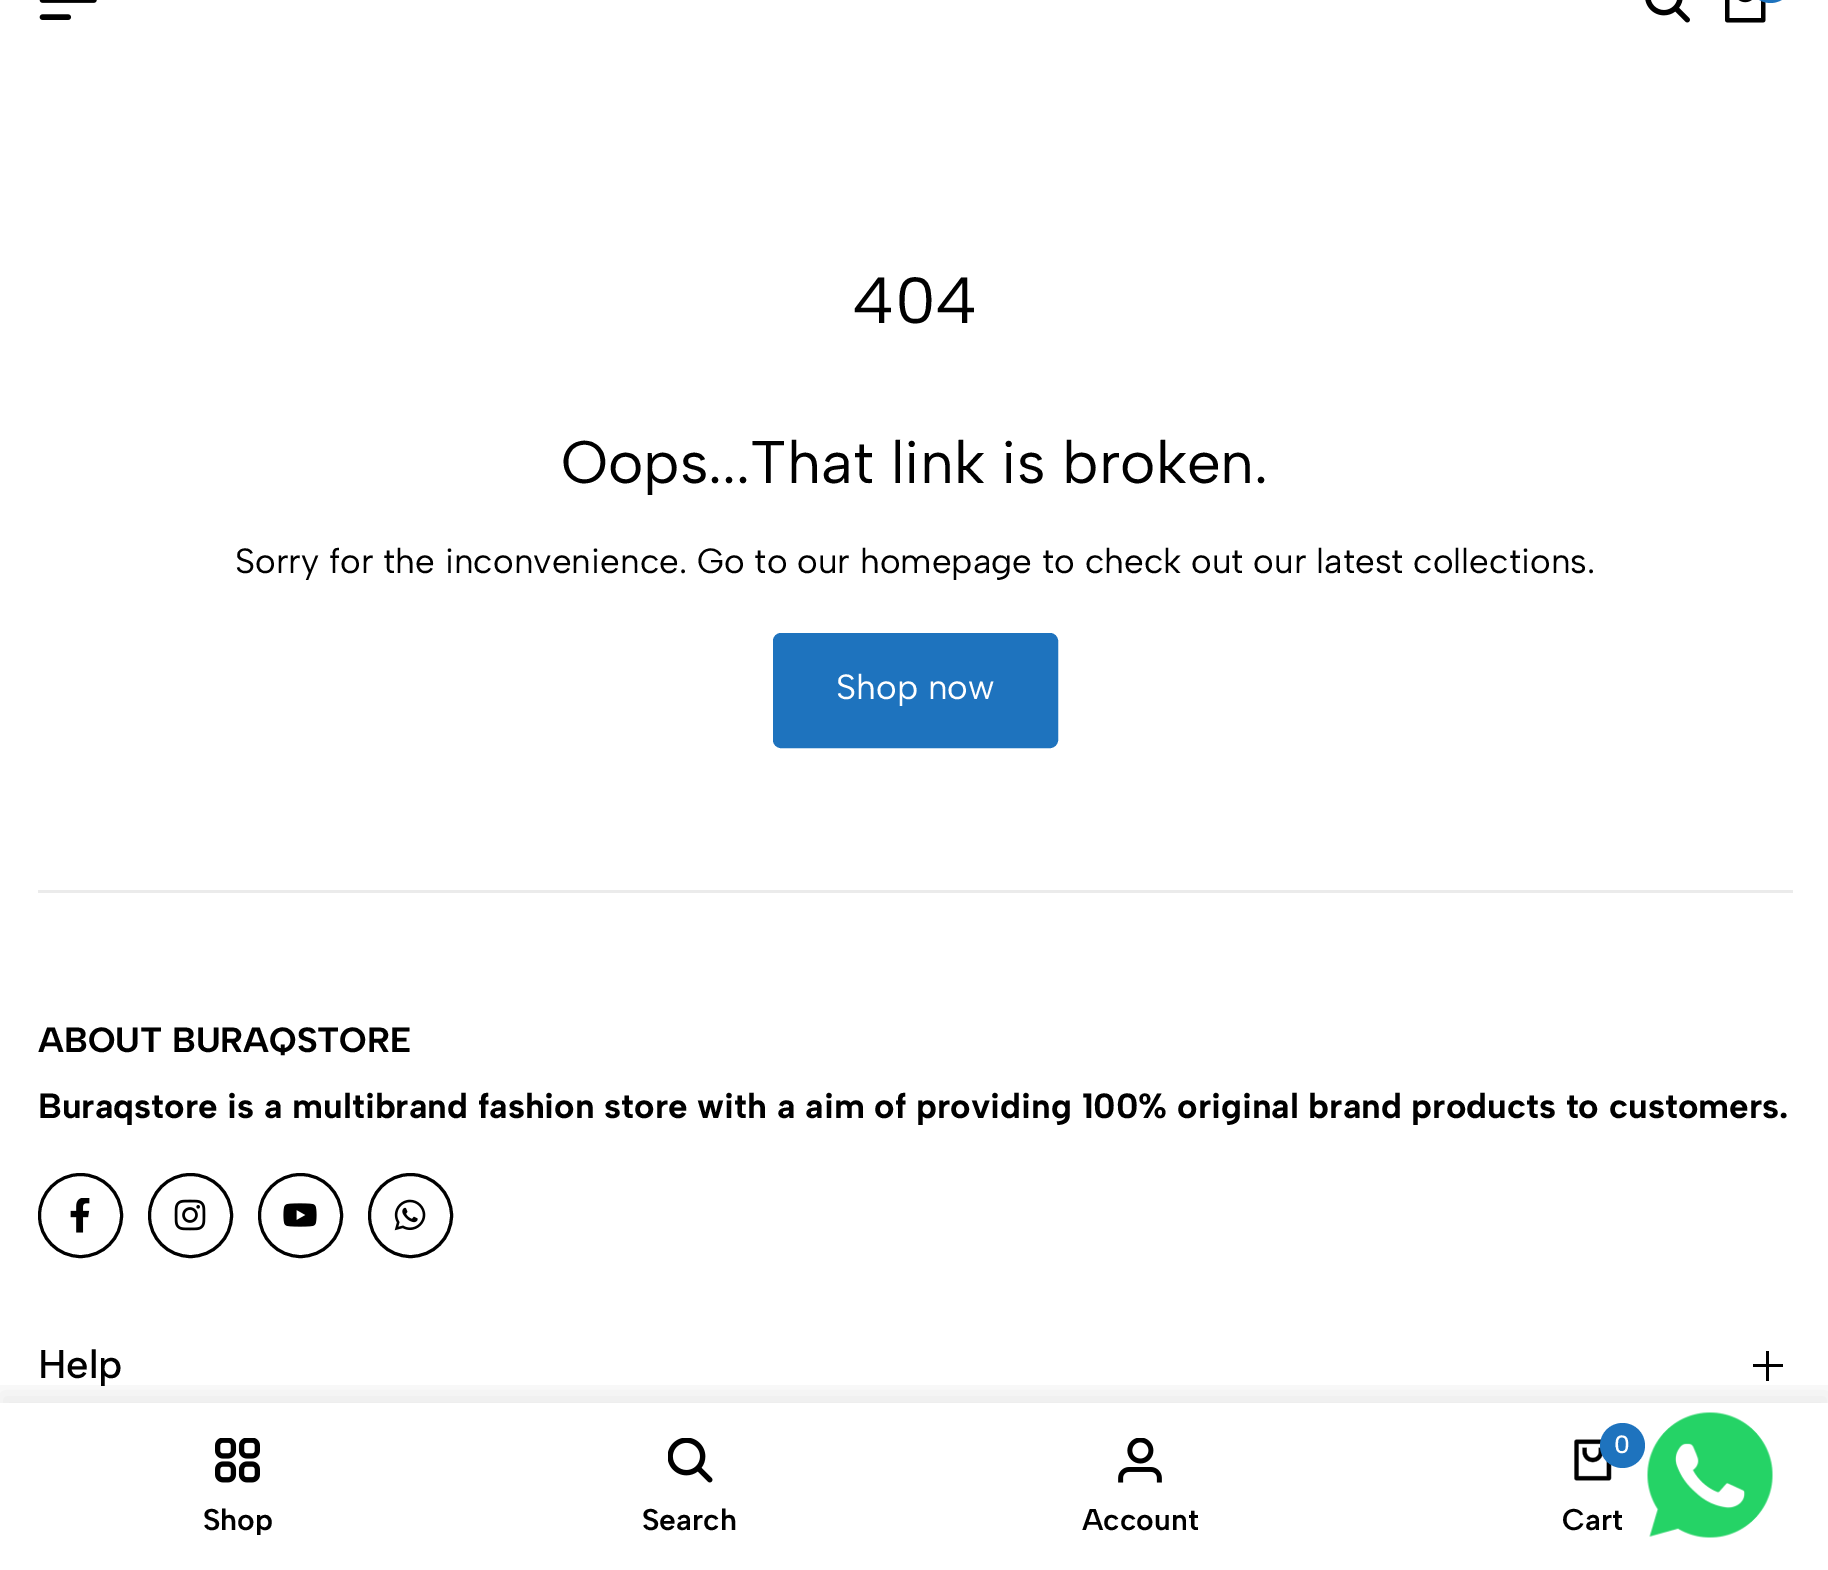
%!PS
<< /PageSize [1828 1570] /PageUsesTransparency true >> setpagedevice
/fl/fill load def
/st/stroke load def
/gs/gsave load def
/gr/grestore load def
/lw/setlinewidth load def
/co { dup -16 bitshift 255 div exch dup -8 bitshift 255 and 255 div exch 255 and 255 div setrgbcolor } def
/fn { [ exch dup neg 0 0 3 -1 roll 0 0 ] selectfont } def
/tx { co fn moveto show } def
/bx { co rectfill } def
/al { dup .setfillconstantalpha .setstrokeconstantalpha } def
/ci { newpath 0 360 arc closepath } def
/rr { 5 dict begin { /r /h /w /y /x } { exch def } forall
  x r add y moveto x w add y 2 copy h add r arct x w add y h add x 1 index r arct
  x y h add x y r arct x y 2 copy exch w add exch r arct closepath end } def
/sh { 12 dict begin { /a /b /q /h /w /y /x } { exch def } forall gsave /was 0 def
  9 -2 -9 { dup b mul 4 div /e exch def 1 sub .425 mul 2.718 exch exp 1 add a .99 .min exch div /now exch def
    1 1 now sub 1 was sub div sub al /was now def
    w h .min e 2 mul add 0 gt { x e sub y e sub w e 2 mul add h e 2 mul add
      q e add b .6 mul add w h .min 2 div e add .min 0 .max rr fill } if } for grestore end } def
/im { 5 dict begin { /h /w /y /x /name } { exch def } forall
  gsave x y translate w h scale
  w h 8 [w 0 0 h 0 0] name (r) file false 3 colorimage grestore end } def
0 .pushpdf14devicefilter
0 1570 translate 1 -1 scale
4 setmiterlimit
0 0 1828 1570 16#FFFFFF bx
(media/1.raw) 39 0 58 20 im
(media/2.raw) 1645 0 45 23 im
(media/3.raw) 1725 0 41 23 im
16#1E73BE co
1748 -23 45 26 22.5 rr fl
774.5 634.5 282 112 6.5 rr gs fl gr
3 lw
st
38 890 1755 3 16#EBEBEB bx
16#000000 co
80.5 1215.5 41 ci st
(media/4.raw) 70 1198 20 35 im
190.5 1215.5 41 ci st
(media/5.raw) 174 1199 32 32 im
300.5 1215.5 41 ci st
(media/6.raw) 283 1203 34 24 im
410.5 1215.5 41 ci st
(media/7.raw) 394 1199 32 32 im
1766 1351 3 30 16#000000 bx
1753 1364 30 3 16#000000 bx
gs
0 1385 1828 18 rectclip
0 1393 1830 167 0 12.5 .08 sh
gr
(media/8.raw) 215 1438 45 45 im
(media/9.raw) 668 1438 45 45 im
(media/10.raw) 1118 1438 44 45 im
(media/11.raw) 1574 1439 38 42 im
16#1E73BE co
1622.5 1445.5 22.5 ci fl
(media/12.raw) 1647 1412 126 126 im
(404) 852 323 /AlbertSans-Regular 65 16#000000 tx
(Oops...That link is broken.) 561 483 /AlbertSans-Regular 60 16#000000 tx
(Sorry for the inconvenience. Go to our homepage to check out our latest collections.) 235 573 /AlbertSans-Regular 35 16#000000 tx
(Shop now) 836 699 /AlbertSans-Regular 35 16#FFFFFF tx
(ABOUT BURAQSTORE) 38 1052 /AlbertSans-Bold 35 16#000000 tx
(Buraqstore is a multibrand fashion store with a aim of providing 100% original brand products to customers.) 38 1118 /AlbertSans-Bold 35 16#000000 tx
(Help) 38 1378 /AlbertSans-Medium 40 16#000000 tx
gs
38 1505 402 30 rectclip
(Shop) 203 1530 /AlbertSans-SemiBold 30 16#000000 tx
gr
(Search) 642 1530 /AlbertSans-SemiBold 30 16#000000 tx
(Account) 1082 1530 /AlbertSans-SemiBold 30 16#000000 tx
(0) 1614 1453 /AlbertSans-Medium 25 16#FFFFFF tx
(Cart) 1562 1530 /AlbertSans-SemiBold 30 16#000000 tx
.poppdf14devicefilter showpage
